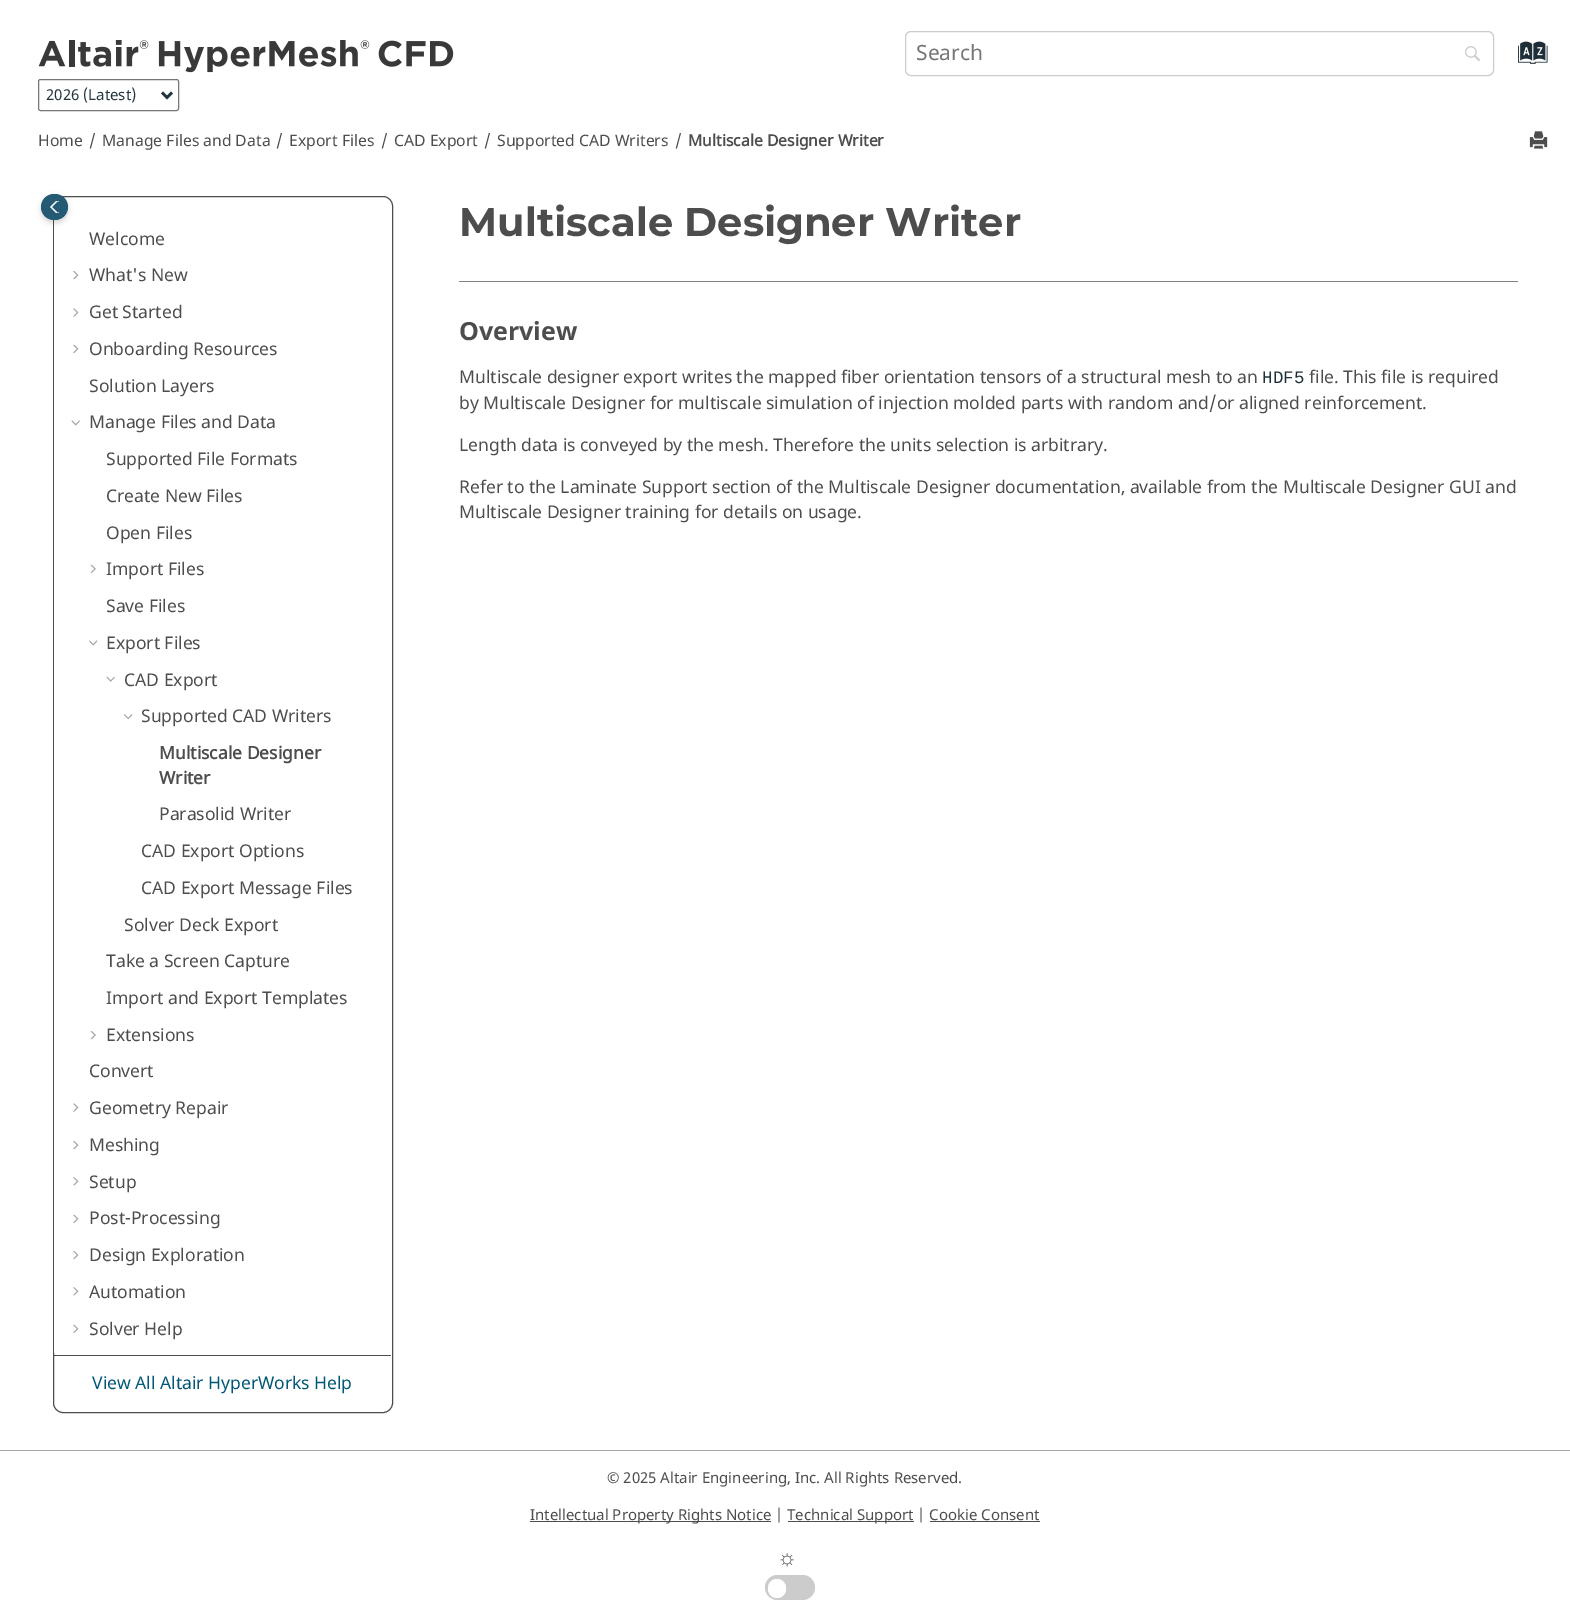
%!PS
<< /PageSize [1570 1621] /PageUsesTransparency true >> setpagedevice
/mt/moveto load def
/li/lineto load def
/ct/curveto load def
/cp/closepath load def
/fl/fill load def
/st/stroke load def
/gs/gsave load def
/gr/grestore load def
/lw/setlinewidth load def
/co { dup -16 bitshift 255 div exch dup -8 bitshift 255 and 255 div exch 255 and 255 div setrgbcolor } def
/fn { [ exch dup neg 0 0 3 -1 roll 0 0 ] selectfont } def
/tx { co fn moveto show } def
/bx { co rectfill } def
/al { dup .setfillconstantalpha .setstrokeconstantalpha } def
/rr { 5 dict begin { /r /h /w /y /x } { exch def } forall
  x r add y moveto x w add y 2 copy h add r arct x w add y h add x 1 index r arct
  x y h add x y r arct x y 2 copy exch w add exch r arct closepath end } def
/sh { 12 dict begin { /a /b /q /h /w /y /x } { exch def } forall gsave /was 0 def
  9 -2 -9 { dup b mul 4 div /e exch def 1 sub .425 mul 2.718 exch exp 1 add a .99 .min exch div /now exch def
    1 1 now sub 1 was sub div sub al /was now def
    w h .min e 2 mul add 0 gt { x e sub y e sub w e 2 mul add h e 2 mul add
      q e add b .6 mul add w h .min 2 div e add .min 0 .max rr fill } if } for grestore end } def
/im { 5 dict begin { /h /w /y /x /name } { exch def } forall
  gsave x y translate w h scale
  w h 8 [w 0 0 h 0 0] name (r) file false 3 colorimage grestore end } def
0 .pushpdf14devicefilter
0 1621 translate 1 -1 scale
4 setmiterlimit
0 0 1570 1621 16#FFFFFF bx
16#CCCCCC co
905.5 31.5 588 44 5.5 rr st
(media/1.raw) 1465 46 15 16 im
(media/2.raw) 1518 41 30 23 im
(media/3.raw) 38 40 416 33 im
16#767676 co
38.5 79.5 140 31 2 rr st
16#23343E co
2.5 lw
162 92.5 mt 167 97.5 li 172 92.5 li st
(media/4.raw) 1529 131 19 18 im
16#4D4D4D co
1 lw
53.5 196.5 339 1216 9.5 rr st
16#FFFFFF co
63 198 mt 382 198 li 387 198 391 202 391 207 ct 391 1351 li 391 1353 389 1355 387 1355 ct 58 1355 li 56 1355 54 1353 54 1351 ct 54 207 li 54 202 58 198 63 198 ct cp fl
(media/5.raw) 73 271 6 9 im
(media/6.raw) 73 308 6 9 im
(media/7.raw) 73 344 6 9 im
(media/8.raw) 71 420 9 6 im
(media/9.raw) 90 564 6 9 im
(media/10.raw) 89 640 9 6 im
(media/11.raw) 106 676 9 6 im
(media/12.raw) 124 714 9 6 im
(media/13.raw) 90 1031 6 9 im
(media/6.raw) 73 1103 6 9 im
(media/5.raw) 73 1141 6 9 im
(media/14.raw) 73 1177 6 9 im
(media/7.raw) 73 1214 6 9 im
(media/5.raw) 73 1251 6 9 im
(media/14.raw) 73 1287 6 9 im
(media/7.raw) 73 1324 6 9 im
54 1355 337 1 16#4D4D4D bx
16#000000 co
41 196 27 27 13.5 3 .16 sh
16#245A73 co
41 194 27 26 13 rr fl
gs
50 201 9 12 rectclip
16#FFFFFF co
1.3 lw
58 200 mt 65 207 li 58 214 li 51 207 li cp st
gr
459 281 1059 1 16#828282 bx
0 1450 1570 1 16#A2A9AF bx
530 1521 241 1 16#4D4D4D bx
788 1521 126 1 16#4D4D4D bx
930 1521 110 1 16#4D4D4D bx
16#CCCCCC co
765 1575 50 25 12.5 rr fl
16#FFFFFF co
768 1579 18 19 9 rr fl
(Search) 916 60 /NotoSans-Regular 21 16#757575 tx
(2026 \(Latest\)) 46 100 /NotoSans-Regular 15 16#23343E tx
(Home) 38 146 /NotoSans-Regular 15.75 16#4D4D4D tx
(/) 89 146 /NotoSans-Regular 15.75 16#4D4D4D tx
(Manage Files and Data) 102 146 /NotoSans-Regular 15.75 16#4D4D4D tx
(/) 276 146 /NotoSans-Regular 15.75 16#4D4D4D tx
(Export Files) 289 146 /NotoSans-Regular 15.75 16#4D4D4D tx
(/) 381 146 /NotoSans-Regular 15.75 16#4D4D4D tx
(CAD Export) 394 146 /NotoSans-Regular 15.75 16#4D4D4D tx
(/) 484 146 /NotoSans-Regular 15.75 16#4D4D4D tx
(Supported CAD Writers) 497 146 /NotoSans-Regular 15.75 16#4D4D4D tx
(/) 675 146 /NotoSans-Regular 15.75 16#4D4D4D tx
(Multiscale Designer Writer) 688 146 /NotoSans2-Bold 15.75 16#4D4D4D tx
(Welcome) 89 245 /NotoSans-Regular 17.5 16#4D4D4D tx
(What's New) 89 281 /NotoSans-Regular 17.5 16#4D4D4D tx
(Get Started) 89 318 /NotoSans-Regular 17.5 16#4D4D4D tx
(Onboarding Resources) 89 355 /NotoSans-Regular 17.5 16#4D4D4D tx
(Solution Layers) 89 392 /NotoSans-Regular 17.5 16#4D4D4D tx
(Manage Files and Data) 89 428 /NotoSans-Regular 17.5 16#4D4D4D tx
(Supported File Formats) 106 465 /NotoSans-Regular 17.5 16#4D4D4D tx
(Create New Files) 106 502 /NotoSans-Regular 17.5 16#4D4D4D tx
(Open Files) 106 539 /NotoSans-Regular 17.5 16#4D4D4D tx
(Import Files) 106 575 /NotoSans-Regular 17.5 16#4D4D4D tx
(Save Files) 106 612 /NotoSans-Regular 17.5 16#4D4D4D tx
(Export Files) 106 649 /NotoSans-Regular 17.5 16#4D4D4D tx
(CAD Export) 124 686 /NotoSans-Regular 17.5 16#4D4D4D tx
(Supported CAD Writers) 141 722 /NotoSans-Regular 17.5 16#4D4D4D tx
(Multiscale Designer) 159 759 /NotoSans2-Bold 17.5 16#4D4D4D tx
(Writer) 159 784 /NotoSans2-Bold 17.5 16#4D4D4D tx
(Parasolid Writer) 159 820 /NotoSans-Regular 17.5 16#4D4D4D tx
(CAD Export Options) 141 857 /NotoSans-Regular 17.5 16#4D4D4D tx
(CAD Export Message Files) 141 894 /NotoSans-Regular 17.5 16#4D4D4D tx
(Solver Deck Export) 124 931 /NotoSans-Regular 17.5 16#4D4D4D tx
(Take a Screen Capture) 106 967 /NotoSans-Regular 17.5 16#4D4D4D tx
(Import and Export Templates) 106 1004 /NotoSans-Regular 17.5 16#4D4D4D tx
(Extensions) 106 1041 /NotoSans-Regular 17.5 16#4D4D4D tx
(Convert) 89 1077 /NotoSans-Regular 17.5 16#4D4D4D tx
(Geometry Repair) 89 1114 /NotoSans-Regular 17.5 16#4D4D4D tx
(Meshing) 89 1151 /NotoSans-Regular 17.5 16#4D4D4D tx
(Setup) 89 1188 /NotoSans-Regular 17.5 16#4D4D4D tx
(Post-Processing) 89 1224 /NotoSans-Regular 17.5 16#4D4D4D tx
(Design Exploration) 89 1261 /NotoSans-Regular 17.5 16#4D4D4D tx
(Automation) 89 1298 /NotoSans-Regular 17.5 16#4D4D4D tx
(Solver Help) 89 1335 /NotoSans-Regular 17.5 16#4D4D4D tx
(View All Altair HyperWorks Help) 92 1389 /NotoSans-Regular 17.5 16#005776 tx
(Multiscale Designer Writer) 459 236 /Montserrat-Bold 40 16#4D4D4D tx
(Overview) 459 340 /NotoSans-Bold 25 16#4D4D4D tx
(Multiscale designer export writes the mapped fiber orientation tensors of a structural mesh to an) 459 383 /NotoSans-Regular 17.5 16#4D4D4D tx
(HDF5) 1262 383 /LiberationMono-Regular 17.5 16#1D2E38 tx
(file. This file is required) 1309 383 /NotoSans-Regular 17.5 16#4D4D4D tx
(by Multiscale Designer for multiscale simulation of injection molded parts with random and/or aligned reinforcement.) 459 409 /NotoSans-Regular 17.5 16#4D4D4D tx
(Length data is conveyed by the mesh. Therefore the units selection is arbitrary.) 459 451 /NotoSans-Regular 17.5 16#4D4D4D tx
(Refer to the Laminate Support section of the Multiscale Designer documentation, available from the Multiscale Designer GUI and) 459 493 /NotoSans-Regular 17.5 16#4D4D4D tx
(Multiscale Designer training for details on usage.) 459 518 /NotoSans-Regular 17.5 16#4D4D4D tx
(© 2025 Altair Engineering, Inc. All Rights Reserved.) 607 1483 /NotoSans-Regular 15 16#4D4D4D tx
(Intellectual Property Rights Notice |) 530 1520 /NotoSans-Regular 15 16#4D4D4D tx
(Technical Support | Cookie Consent) 787 1520 /NotoSans-Regular 15 16#4D4D4D tx
(☼) 777 1565 /LiberationSans-Regular 22 16#4D4D4D tx
.poppdf14devicefilter showpage
